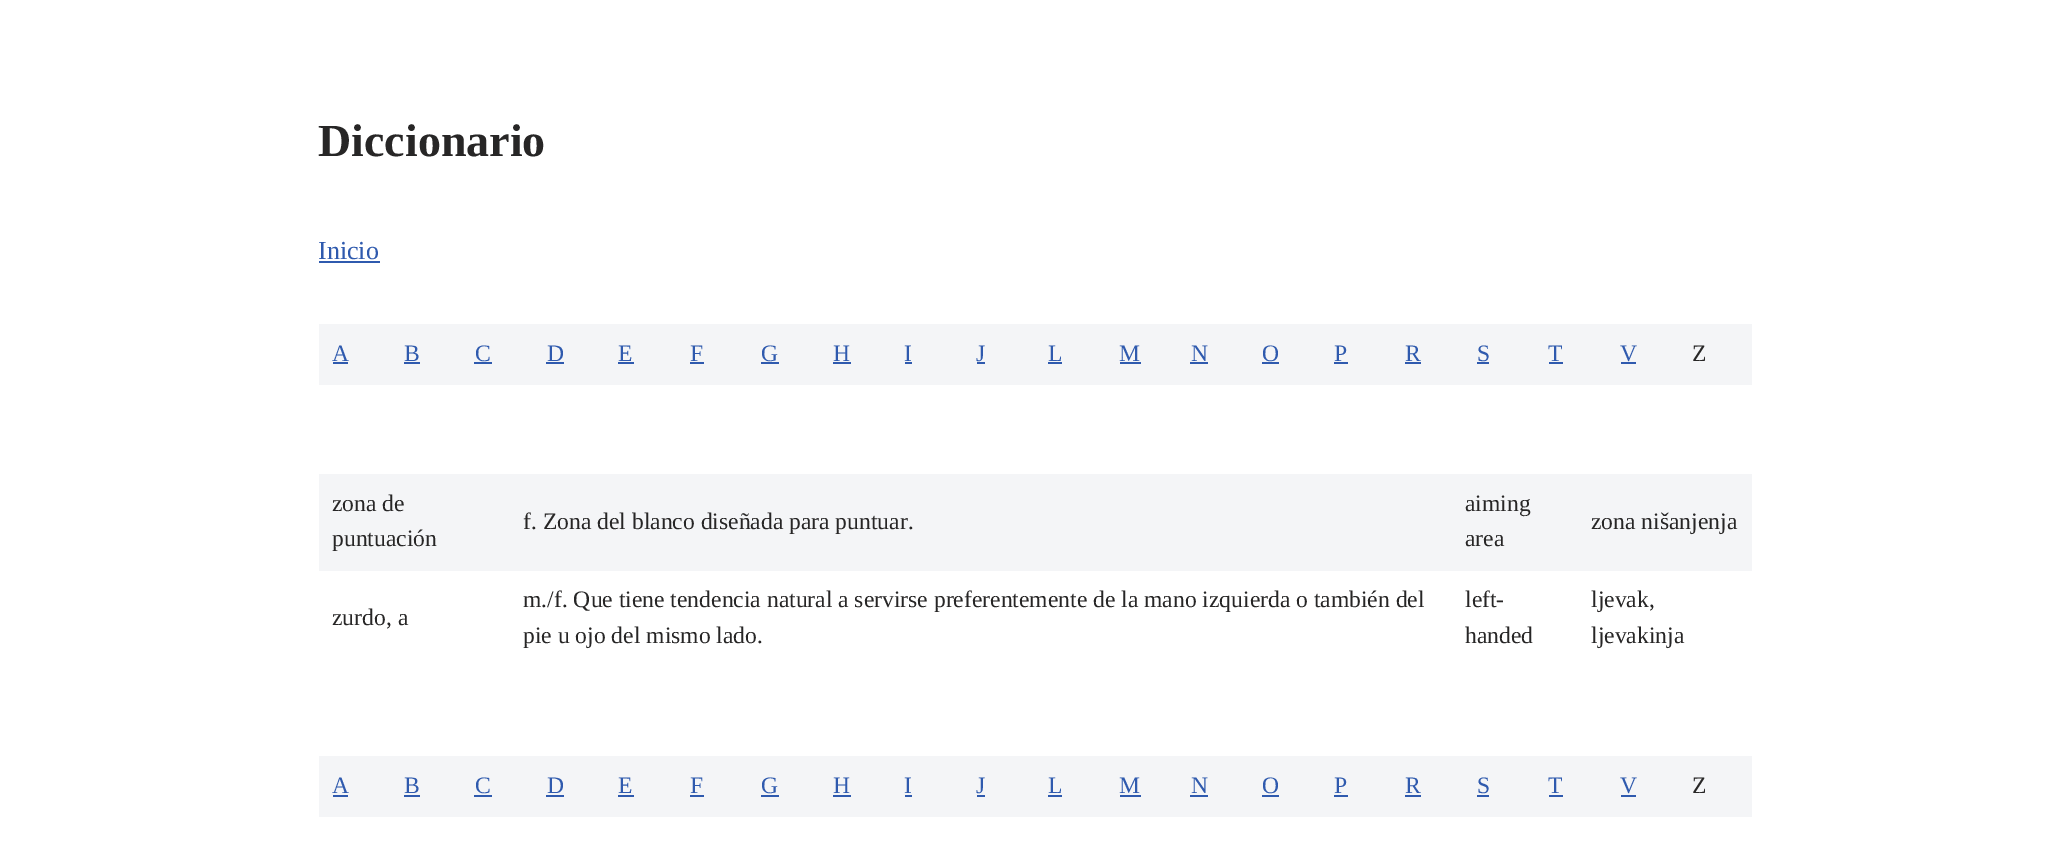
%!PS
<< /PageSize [2070 861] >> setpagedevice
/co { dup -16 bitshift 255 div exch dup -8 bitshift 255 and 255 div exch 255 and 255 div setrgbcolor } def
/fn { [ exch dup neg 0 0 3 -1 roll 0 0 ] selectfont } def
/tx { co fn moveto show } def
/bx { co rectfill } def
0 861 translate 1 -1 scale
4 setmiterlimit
0 0 2070 861 16#FFFFFF bx
319 261 61 2 16#2F5AAE bx
319 324 1433 61 16#F4F5F7 bx
333 362 15 2 16#2F5AAE bx
404 362 16 2 16#2F5AAE bx
474 362 18 2 16#2F5AAE bx
546 362 18 2 16#2F5AAE bx
618 362 16 2 16#2F5AAE bx
690 362 14 2 16#2F5AAE bx
761 362 18 2 16#2F5AAE bx
833 362 18 2 16#2F5AAE bx
905 362 7 2 16#2F5AAE bx
977 362 8 2 16#2F5AAE bx
1048 362 14 2 16#2F5AAE bx
1120 362 21 2 16#2F5AAE bx
1190 362 18 2 16#2F5AAE bx
1262 362 17 2 16#2F5AAE bx
1334 362 14 2 16#2F5AAE bx
1405 362 16 2 16#2F5AAE bx
1477 362 12 2 16#2F5AAE bx
1549 362 14 2 16#2F5AAE bx
1621 362 15 2 16#2F5AAE bx
319 474 1433 97 16#F4F5F7 bx
319 756 1433 61 16#F4F5F7 bx
333 795 15 2 16#2F5AAE bx
404 795 16 2 16#2F5AAE bx
474 795 18 2 16#2F5AAE bx
546 795 18 2 16#2F5AAE bx
618 795 16 2 16#2F5AAE bx
690 795 14 2 16#2F5AAE bx
761 795 18 2 16#2F5AAE bx
833 795 18 2 16#2F5AAE bx
905 795 7 2 16#2F5AAE bx
977 795 8 2 16#2F5AAE bx
1048 795 14 2 16#2F5AAE bx
1120 795 21 2 16#2F5AAE bx
1190 795 18 2 16#2F5AAE bx
1262 795 17 2 16#2F5AAE bx
1334 795 14 2 16#2F5AAE bx
1405 795 16 2 16#2F5AAE bx
1477 795 12 2 16#2F5AAE bx
1549 795 14 2 16#2F5AAE bx
1621 795 15 2 16#2F5AAE bx
(Diccionario) 318 156 /LiberationSerif-Bold 46 16#272626 tx
(Inicio) 318 259 /LiberationSerif-Regular 26 16#2F5AAE tx
(A) 332 361 /LiberationSerif-Regular 23.6 16#2F5AAE tx
(B) 404 361 /LiberationSerif-Regular 23.6 16#2F5AAE tx
(C) 475 361 /LiberationSerif-Regular 23.6 16#2F5AAE tx
(D) 547 361 /LiberationSerif-Regular 23.6 16#2F5AAE tx
(E) 618 361 /LiberationSerif-Regular 23.6 16#2F5AAE tx
(F) 690 361 /LiberationSerif-Regular 23.6 16#2F5AAE tx
(G) 761 361 /LiberationSerif-Regular 23.6 16#2F5AAE tx
(H) 833 361 /LiberationSerif-Regular 23.6 16#2F5AAE tx
(I) 904 361 /LiberationSerif-Regular 23.6 16#2F5AAE tx
(J) 976 361 /LiberationSerif-Regular 23.6 16#2F5AAE tx
(L) 1048 361 /LiberationSerif-Regular 23.6 16#2F5AAE tx
(M) 1119 361 /LiberationSerif-Regular 23.6 16#2F5AAE tx
(N) 1191 361 /LiberationSerif-Regular 23.6 16#2F5AAE tx
(O) 1262 361 /LiberationSerif-Regular 23.6 16#2F5AAE tx
(P) 1334 361 /LiberationSerif-Regular 23.6 16#2F5AAE tx
(R) 1405 361 /LiberationSerif-Regular 23.6 16#2F5AAE tx
(S) 1477 361 /LiberationSerif-Regular 23.6 16#2F5AAE tx
(T) 1548 361 /LiberationSerif-Regular 23.6 16#2F5AAE tx
(V) 1620 361 /LiberationSerif-Regular 23.6 16#2F5AAE tx
(Z) 1692 361 /LiberationSerif-Regular 23.6 16#272626 tx
(zona de) 332 511 /LiberationSerif-Regular 23.6 16#272626 tx
(puntuación) 332 546 /LiberationSerif-Regular 23.6 16#272626 tx
(f. Zona del blanco diseñada para puntuar.) 523 529 /LiberationSerif-Regular 23.6 16#272626 tx
(aiming) 1465 511 /LiberationSerif-Regular 23.6 16#272626 tx
(area) 1465 546 /LiberationSerif-Regular 23.6 16#272626 tx
(zona nišanjenja) 1591 529 /LiberationSerif-Regular 23.6 16#272626 tx
(zurdo, a) 332 625 /LiberationSerif-Regular 23.6 16#272626 tx
(m./f. Que tiene tendencia natural a servirse preferentemente de la mano izquierda o también del) 523 607 /LiberationSerif-Regular 23.6 16#272626 tx
(pie u ojo del mismo lado.) 523 643 /LiberationSerif-Regular 23.6 16#272626 tx
(left-) 1465 607 /LiberationSerif-Regular 23.6 16#272626 tx
(handed) 1465 643 /LiberationSerif-Regular 23.6 16#272626 tx
(ljevak,) 1591 607 /LiberationSerif-Regular 23.6 16#272626 tx
(ljevakinja) 1591 643 /LiberationSerif-Regular 23.6 16#272626 tx
(A) 332 793 /LiberationSerif-Regular 23.6 16#2F5AAE tx
(B) 404 793 /LiberationSerif-Regular 23.6 16#2F5AAE tx
(C) 475 793 /LiberationSerif-Regular 23.6 16#2F5AAE tx
(D) 547 793 /LiberationSerif-Regular 23.6 16#2F5AAE tx
(E) 618 793 /LiberationSerif-Regular 23.6 16#2F5AAE tx
(F) 690 793 /LiberationSerif-Regular 23.6 16#2F5AAE tx
(G) 761 793 /LiberationSerif-Regular 23.6 16#2F5AAE tx
(H) 833 793 /LiberationSerif-Regular 23.6 16#2F5AAE tx
(I) 904 793 /LiberationSerif-Regular 23.6 16#2F5AAE tx
(J) 976 793 /LiberationSerif-Regular 23.6 16#2F5AAE tx
(L) 1048 793 /LiberationSerif-Regular 23.6 16#2F5AAE tx
(M) 1119 793 /LiberationSerif-Regular 23.6 16#2F5AAE tx
(N) 1191 793 /LiberationSerif-Regular 23.6 16#2F5AAE tx
(O) 1262 793 /LiberationSerif-Regular 23.6 16#2F5AAE tx
(P) 1334 793 /LiberationSerif-Regular 23.6 16#2F5AAE tx
(R) 1405 793 /LiberationSerif-Regular 23.6 16#2F5AAE tx
(S) 1477 793 /LiberationSerif-Regular 23.6 16#2F5AAE tx
(T) 1548 793 /LiberationSerif-Regular 23.6 16#2F5AAE tx
(V) 1620 793 /LiberationSerif-Regular 23.6 16#2F5AAE tx
(Z) 1692 793 /LiberationSerif-Regular 23.6 16#272626 tx
showpage
